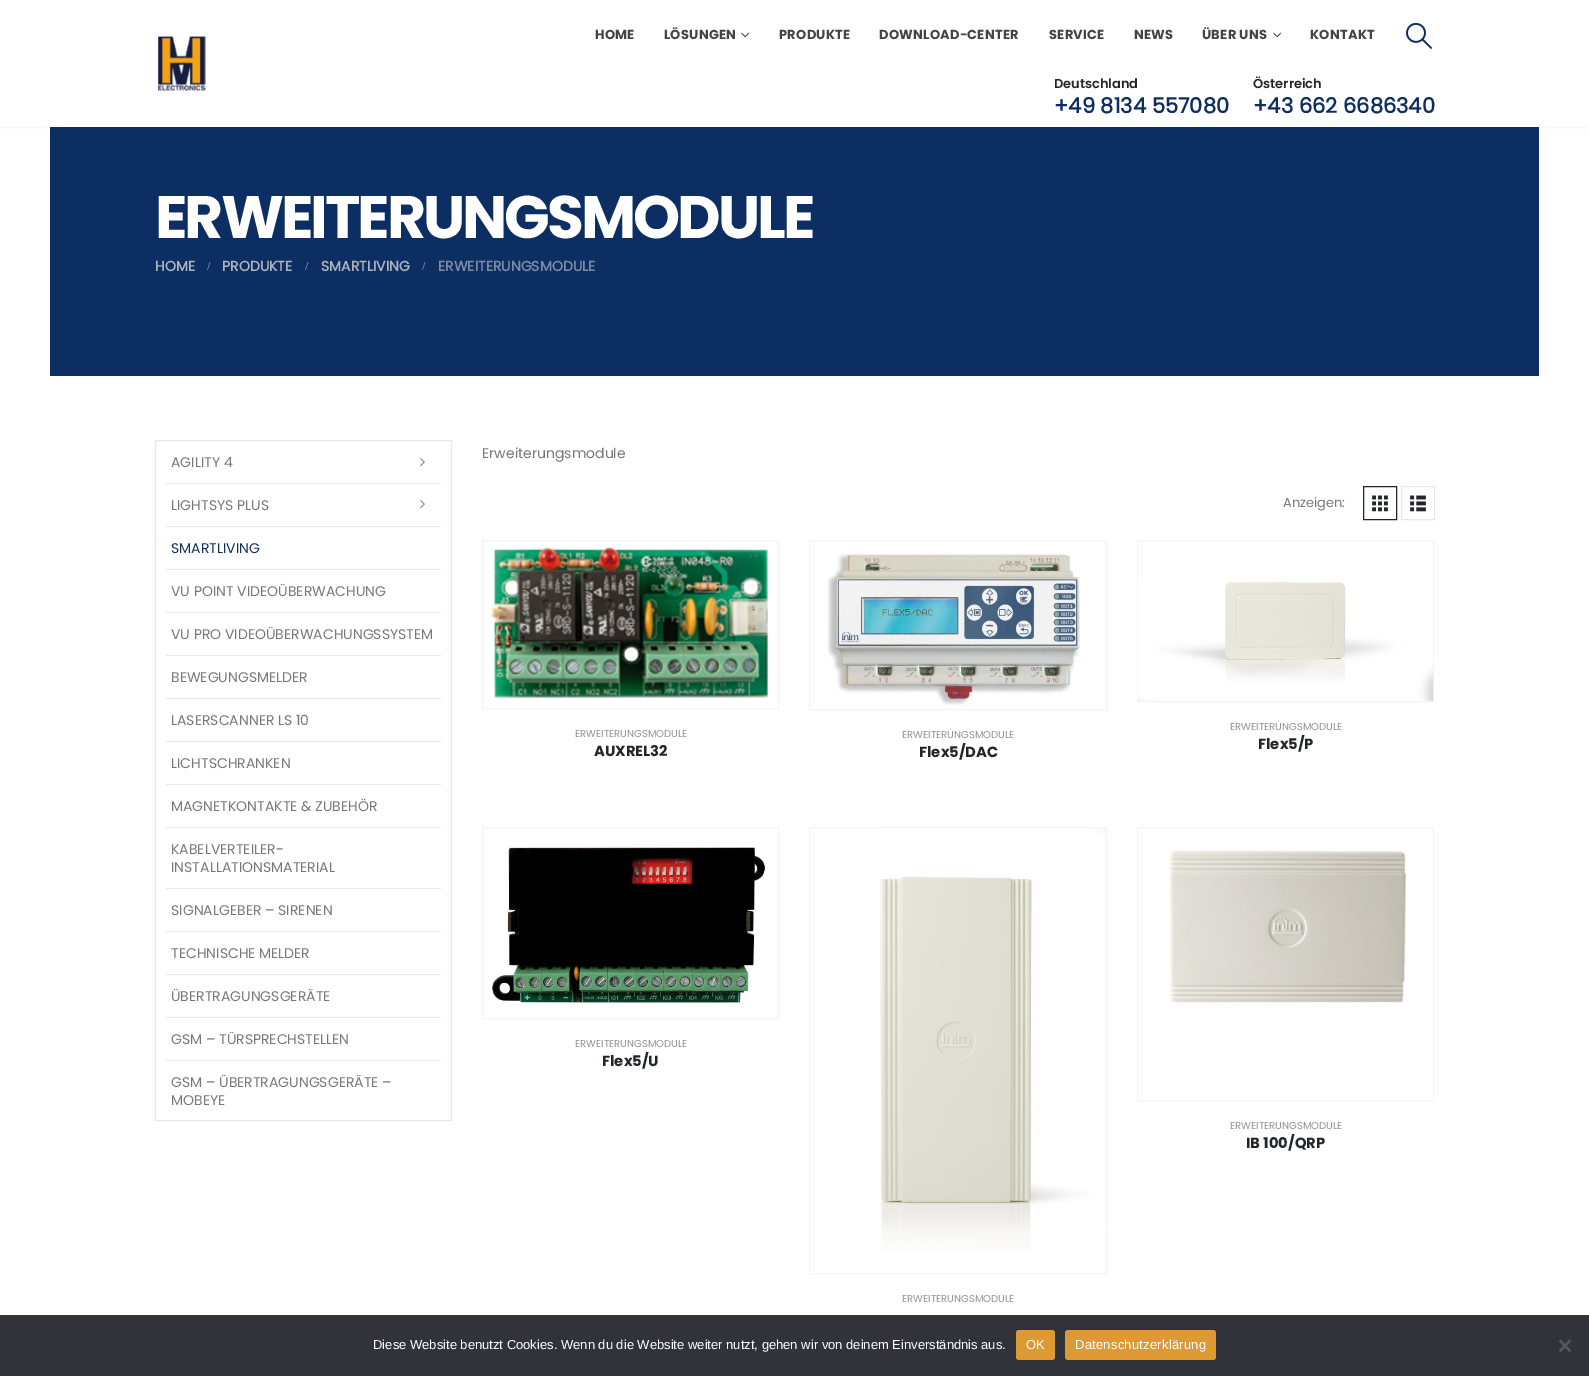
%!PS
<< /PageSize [1589 1376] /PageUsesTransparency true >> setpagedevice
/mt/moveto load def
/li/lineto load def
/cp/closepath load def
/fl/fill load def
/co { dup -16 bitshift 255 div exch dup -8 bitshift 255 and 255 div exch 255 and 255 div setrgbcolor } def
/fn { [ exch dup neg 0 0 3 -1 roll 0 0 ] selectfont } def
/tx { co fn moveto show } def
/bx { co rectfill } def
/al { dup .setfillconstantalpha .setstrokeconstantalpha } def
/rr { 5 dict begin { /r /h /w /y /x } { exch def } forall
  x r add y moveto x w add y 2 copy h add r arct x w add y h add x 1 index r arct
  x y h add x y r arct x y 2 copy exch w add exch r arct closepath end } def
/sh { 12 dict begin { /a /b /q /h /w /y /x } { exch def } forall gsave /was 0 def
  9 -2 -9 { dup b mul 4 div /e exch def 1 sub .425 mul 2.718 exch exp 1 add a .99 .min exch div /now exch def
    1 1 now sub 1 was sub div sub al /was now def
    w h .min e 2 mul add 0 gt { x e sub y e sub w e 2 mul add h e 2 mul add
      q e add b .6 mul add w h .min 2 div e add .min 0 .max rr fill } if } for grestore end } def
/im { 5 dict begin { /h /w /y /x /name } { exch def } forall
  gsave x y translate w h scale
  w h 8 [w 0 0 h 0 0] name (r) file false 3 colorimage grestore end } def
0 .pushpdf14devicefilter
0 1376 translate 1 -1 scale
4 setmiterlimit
0 0 1589 1376 16#FFFFFF bx
50 127 1489 249 16#0D2E62 bx
16#000000 co
0 0 1589 127 0 1.5 .06 sh
0 0 1589 127 16#FFFFFF bx
(media/1.raw) 158 36 48 55 im
(media/2.raw) 741 32 9 6 im
(media/2.raw) 1273 32 9 6 im
(media/3.raw) 1406 22 26 27 im
16#E7E7E7 co
155.5 440.5 296 680 rectstroke
(media/4.raw) 420 458 5 9 im
166 483 275 1 16#E7E7E7 bx
(media/4.raw) 420 500 5 9 im
166 526 275 1 16#E7E7E7 bx
166 569 275 1 16#E7E7E7 bx
166 612 275 1 16#E7E7E7 bx
166 655 275 1 16#E7E7E7 bx
166 698 275 1 16#E7E7E7 bx
166 741 275 1 16#E7E7E7 bx
166 784 275 1 16#E7E7E7 bx
166 827 275 1 16#E7E7E7 bx
166 888 275 1 16#E7E7E7 bx
166 931 275 1 16#E7E7E7 bx
166 974 275 1 16#E7E7E7 bx
166 1017 275 1 16#E7E7E7 bx
166 1060 275 1 16#E7E7E7 bx
16#222529 co
1363.5 486.5 33 33 rectstroke
(media/5.raw) 1372 495 16 17 im
16#E7E7E7 co
1401.5 486.5 33 33 rectstroke
(media/6.raw) 1410 495 16 17 im
16#F4F4F4 co
482.5 540.5 296 168 rectstroke
(media/7.raw) 490 546 279 152 im
809.5 540.5 297 169 rectstroke
(media/8.raw) 827 553 253 152 im
1137.5 540.5 296 161 rectstroke
(media/9.raw) 1138 582 295 119 im
482.5 827.5 296 191 rectstroke
(media/10.raw) 492 846 277 158 im
1137.5 827.5 296 273 rectstroke
(media/11.raw) 1169 850 238 154 im
809.5 827.5 297 446 rectstroke
(media/12.raw) 879 828 227 424 im
0 1315 1589 61 16#32323A bx
16#DD9933 co
1016 1330 39 30 3 rr fl
1065 1330 151 30 3 rr fl
16#59595D co
1569.5 1339.5 mt 1571 1341 li 1560.5 1352 li 1559 1350.5 li cp fl
1559 1341 mt 1560.5 1339.5 li 1571 1350.5 li 1569.5 1352 li cp fl
/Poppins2-Bold 13 fn
16#444444 co
595 39 mt .25 0 (HOME) ashow
664 39 mt .25 0 (LÖSUNGEN) ashow
779 39 mt .25 0 (PRODUKTE) ashow
879 39 mt .25 0 (DOWNLOAD-CENTER) ashow
1049 39 mt .25 0 (SERVICE) ashow
1134 39 mt .25 0 (NEWS) ashow
1202 39 mt .25 0 (ÜBER UNS) ashow
1310 39 mt .25 0 (KONTAKT) ashow
(Deutschland) 1054 88 /Poppins-SemiBold 13 16#222529 tx
(+49 8134 557080) 1054 113 /Poppins-Bold 21 16#0D2E62 tx
(Österreich) 1253 88 /Poppins-SemiBold 13 16#222529 tx
(+43 662 6686340) 1253 113 /Poppins-Bold 21 16#0D2E62 tx
/Poppins2-Bold 60 fn
16#FFFFFF co
155 238 mt -3 0 (ERWEITERUNGSMODULE) ashow
(HOME) 155 271 /Poppins-Bold 14 16#ACB4BE tx
(/) 207 270 /LiberationSerif-Bold 12 16#7C8CA2 tx
(PRODUKTE) 222 271 /Poppins-Bold 14 16#ACB4BE tx
(/) 305 270 /LiberationSerif-Bold 12 16#7C8CA2 tx
(SMARTLIVING) 321 271 /Poppins-Bold 14 16#ACB4BE tx
(/) 422 270 /LiberationSerif-Bold 12 16#7C8CA2 tx
(ERWEITERUNGSMODULE) 438 271 /Poppins-Bold 14 16#7C8CA2 tx
(AGILITY 4) 171 467 /Poppins-Regular 14 16#777777 tx
(LIGHTSYS PLUS) 171 510 /Poppins-Regular 14 16#777777 tx
(SMARTLIVING) 171 553 /Poppins-Regular 14 16#0D2E62 tx
(VU POINT VIDEOÜBERWACHUNG) 171 596 /Poppins-Regular 14 16#777777 tx
(VU PRO VIDEOÜBERWACHUNGSSYSTEM) 171 639 /Poppins-Regular 14 16#777777 tx
(BEWEGUNGSMELDER) 171 682 /Poppins-Regular 14 16#777777 tx
(LASERSCANNER LS 10) 171 725 /Poppins-Regular 14 16#777777 tx
(LICHTSCHRANKEN) 171 768 /Poppins-Regular 14 16#777777 tx
(MAGNETKONTAKTE & ZUBEHÖR) 171 811 /Poppins-Regular 14 16#777777 tx
(KABELVERTEILER-) 171 854 /Poppins-Regular 14 16#777777 tx
(INSTALLATIONSMATERIAL) 171 872 /Poppins-Regular 14 16#777777 tx
(SIGNALGEBER – SIRENEN) 171 915 /Poppins-Regular 14 16#777777 tx
(TECHNISCHE MELDER) 171 958 /Poppins-Regular 14 16#777777 tx
(ÜBERTRAGUNGSGERÄTE) 171 1001 /Poppins-Regular 14 16#777777 tx
(GSM – TÜRSPRECHSTELLEN) 171 1044 /Poppins-Regular 14 16#777777 tx
(GSM – ÜBERTRAGUNGSGERÄTE –) 171 1087 /Poppins-Regular 14 16#777777 tx
(MOBEYE) 171 1105 /Poppins-Regular 14 16#777777 tx
(Erweiterungsmodule) 482 458 /Poppins-Regular 14 16#777777 tx
(Anzeigen:) 1283 507 /Poppins-Regular 13 16#777777 tx
(ERWEITERUNGSMODULE) 575 737 /Poppins-Regular 10 16#929292 tx
(AUXREL32) 594 756 /Poppins2-Bold 14.75 16#222529 tx
(ERWEITERUNGSMODULE) 902 738 /Poppins-Regular 10 16#929292 tx
(Flex5/DAC) 919 757 /Poppins2-Bold 14.75 16#222529 tx
(ERWEITERUNGSMODULE) 1230 730 /Poppins-Regular 10 16#929292 tx
(Flex5/P) 1258 749 /Poppins2-Bold 14.75 16#222529 tx
(ERWEITERUNGSMODULE) 575 1047 /Poppins-Regular 10 16#929292 tx
(Flex5/U) 602 1066 /Poppins2-Bold 14.75 16#222529 tx
(ERWEITERUNGSMODULE) 1230 1129 /Poppins-Regular 10 16#929292 tx
(IB 100/QRP) 1246 1148 /Poppins2-Bold 14.75 16#222529 tx
(ERWEITERUNGSMODULE) 902 1302 /Poppins-Regular 10 16#929292 tx
(Diese Website benutzt Cookies. Wenn du die Website weiter nutzt, gehen wir von deinem Einverständnis aus.) 373 1349 /LiberationSans-Regular 13 16#FFFFFF tx
1026 1349 mt .25 0 (OK) ashow
1075 1349 mt .25 0 (Datenschutzerklärung) ashow
.poppdf14devicefilter showpage
